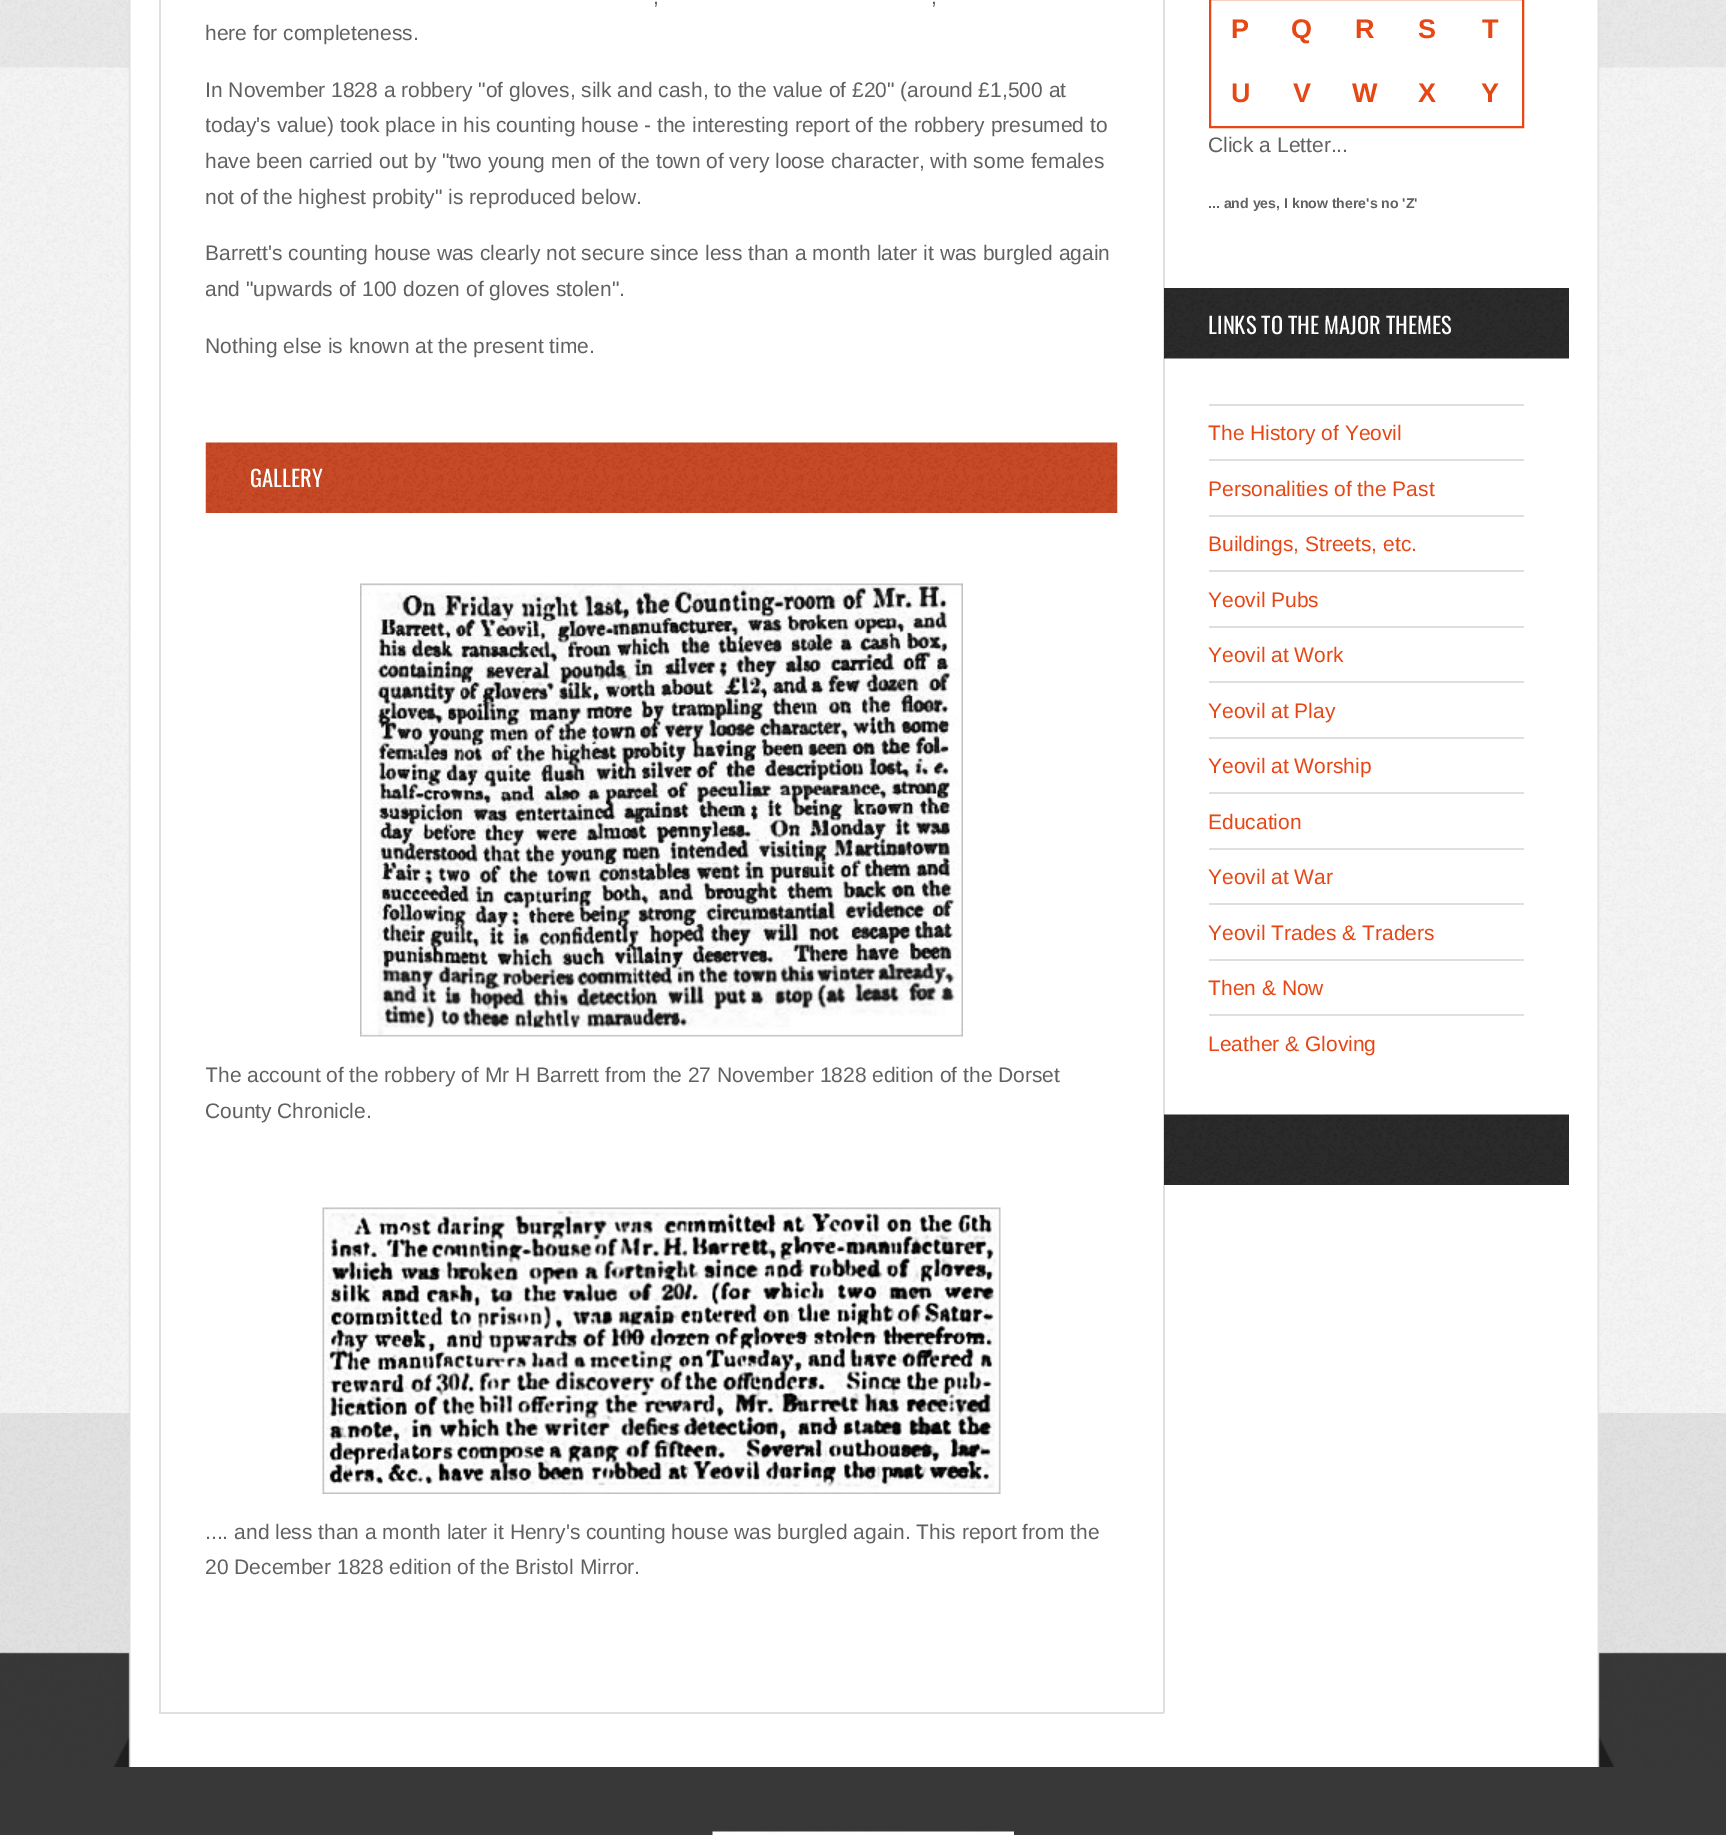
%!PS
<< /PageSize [1726 1835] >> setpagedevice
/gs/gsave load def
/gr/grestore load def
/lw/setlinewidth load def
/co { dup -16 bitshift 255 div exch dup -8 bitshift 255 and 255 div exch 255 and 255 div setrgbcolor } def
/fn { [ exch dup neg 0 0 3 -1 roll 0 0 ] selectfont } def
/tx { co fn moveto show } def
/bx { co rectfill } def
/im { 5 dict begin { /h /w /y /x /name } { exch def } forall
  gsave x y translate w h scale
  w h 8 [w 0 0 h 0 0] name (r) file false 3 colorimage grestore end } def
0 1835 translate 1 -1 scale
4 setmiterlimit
0 0 1726 1835 16#383838 bx
(media/1.raw) 0 69 1726 1344 im
(media/2.raw) 0 0 1726 69 im
(media/3.raw) 0 1413 1726 354 im
(media/4.raw) 114 67 1500 1346 im
(media/5.raw) 114 0 1500 68 im
(media/6.raw) 114 1413 1500 354 im
1163 0 2 1713 16#DFDFDF bx
159 1712 1005 2 16#DFDFDF bx
159 0 2 1713 16#DFDFDF bx
(media/7.raw) 205 442 913 71 im
(media/8.raw) 360 583 603 454 im
(media/9.raw) 322 1207 679 287 im
16#E64715 co
2 lw
1210 -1 313 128 rectstroke
(media/10.raw) 1164 288 405 71 im
1209 404 315 2 16#DFDFDF bx
1209 459 315 2 16#DFDFDF bx
1209 515 315 2 16#DFDFDF bx
1209 570 315 2 16#DFDFDF bx
1209 626 315 2 16#DFDFDF bx
1209 681 315 2 16#DFDFDF bx
1209 737 315 2 16#DFDFDF bx
1209 792 315 2 16#DFDFDF bx
1209 848 315 2 16#DFDFDF bx
1209 903 315 2 16#DFDFDF bx
1209 959 315 2 16#DFDFDF bx
1209 1014 315 2 16#DFDFDF bx
(media/11.raw) 1164 1114 405 71 im
(media/12.raw) 712 1831 302 4 im
(,) 653 4 /LiberationSans-Regular 21 16#616161 tx
(,) 931 4 /LiberationSans-Regular 21 16#616161 tx
(here for completeness.) 205 40 /LiberationSans-Regular 21 16#616161 tx
(In November 1828 a robbery "of gloves, silk and cash, to the value of £20" \(around £1,500 at) 205 97 /LiberationSans-Regular 21 16#616161 tx
gs
206 0 912 1667 rectclip
(today's value\) took) 205 132 /LiberationSans-Regular 21 16#616161 tx
gr
(place in his counting house - the interesting report of the robbery presumed to) 385 132 /LiberationSans-Regular 21 16#616161 tx
(have been carried out by "two young men of the town of very loose character, with some females) 205 168 /LiberationSans-Regular 21 16#616161 tx
(not of the highest probity" is reproduced below.) 205 204 /LiberationSans-Regular 21 16#616161 tx
(Barrett's counting house was clearly not secure since less than a month later it was burgled again) 205 260 /LiberationSans-Regular 21 16#616161 tx
gs
206 0 912 1667 rectclip
(and) 205 296 /LiberationSans-Regular 21 16#616161 tx
gr
("upwards of 100 dozen of gloves stolen".) 246 296 /LiberationSans-Regular 21 16#616161 tx
(Nothing else is known at the present time.) 205 353 /LiberationSans-Regular 21 16#616161 tx
(GALLERY) 250 487 /Oswald-Regular 22.5 16#FFFFFF tx
gs
206 0 912 1667 rectclip
(The account) 205 1082 /LiberationSans-Regular 21 16#616161 tx
gr
(of the robbery of Mr H Barrett from the 27 November 1828 edition of the Dorset) 326 1082 /LiberationSans-Regular 21 16#616161 tx
gs
206 0 912 1667 rectclip
(County) 205 1118 /LiberationSans-Regular 21 16#616161 tx
gr
(Chronicle.) 277 1118 /LiberationSans-Regular 21 16#616161 tx
(.... and less than a month later it Henry's counting house was burgled again. This report from the) 205 1539 /LiberationSans-Regular 21 16#616161 tx
(20 December 1828 edition of the Bristol Mirror.) 205 1574 /LiberationSans-Regular 21 16#616161 tx
(P) 1231 38 /LiberationSans-Bold 27 16#E64715 tx
(Q) 1291 38 /LiberationSans-Bold 27 16#E64715 tx
(R) 1355 38 /LiberationSans-Bold 27 16#E64715 tx
(S) 1418 38 /LiberationSans-Bold 27 16#E64715 tx
(T) 1482 38 /LiberationSans-Bold 27 16#E64715 tx
(U) 1231 102 /LiberationSans-Bold 27 16#E64715 tx
(V) 1293 102 /LiberationSans-Bold 27 16#E64715 tx
(W) 1352 102 /LiberationSans-Bold 27 16#E64715 tx
(X) 1418 102 /LiberationSans-Bold 27 16#E64715 tx
(Y) 1481 102 /LiberationSans-Bold 27 16#E64715 tx
(Click a Letter...) 1208 152 /LiberationSans-Regular 21 16#616161 tx
(... and yes, I know there's no 'Z') 1208 208 /LiberationSans-Bold 14.1 16#616161 tx
(LINKS TO THE MAJOR THEMES) 1208 334 /Oswald-Regular 22.5 16#FFFFFF tx
(The History of Yeovil) 1208 440 /LiberationSans-Regular 21 16#E64715 tx
(Personalities of the Past) 1208 496 /LiberationSans-Regular 21 16#E64715 tx
(Buildings, Streets, etc.) 1208 551 /LiberationSans-Regular 21 16#E64715 tx
(Yeovil Pubs) 1208 607 /LiberationSans-Regular 21 16#E64715 tx
(Yeovil at Work) 1208 662 /LiberationSans-Regular 21 16#E64715 tx
(Yeovil at Play) 1208 718 /LiberationSans-Regular 21 16#E64715 tx
(Yeovil at Worship) 1208 773 /LiberationSans-Regular 21 16#E64715 tx
(Education) 1208 829 /LiberationSans-Regular 21 16#E64715 tx
(Yeovil at War) 1208 884 /LiberationSans-Regular 21 16#E64715 tx
(Yeovil Trades & Traders) 1208 940 /LiberationSans-Regular 21 16#E64715 tx
(Then & Now) 1208 995 /LiberationSans-Regular 21 16#E64715 tx
(Leather & Gloving) 1208 1051 /LiberationSans-Regular 21 16#E64715 tx
showpage
